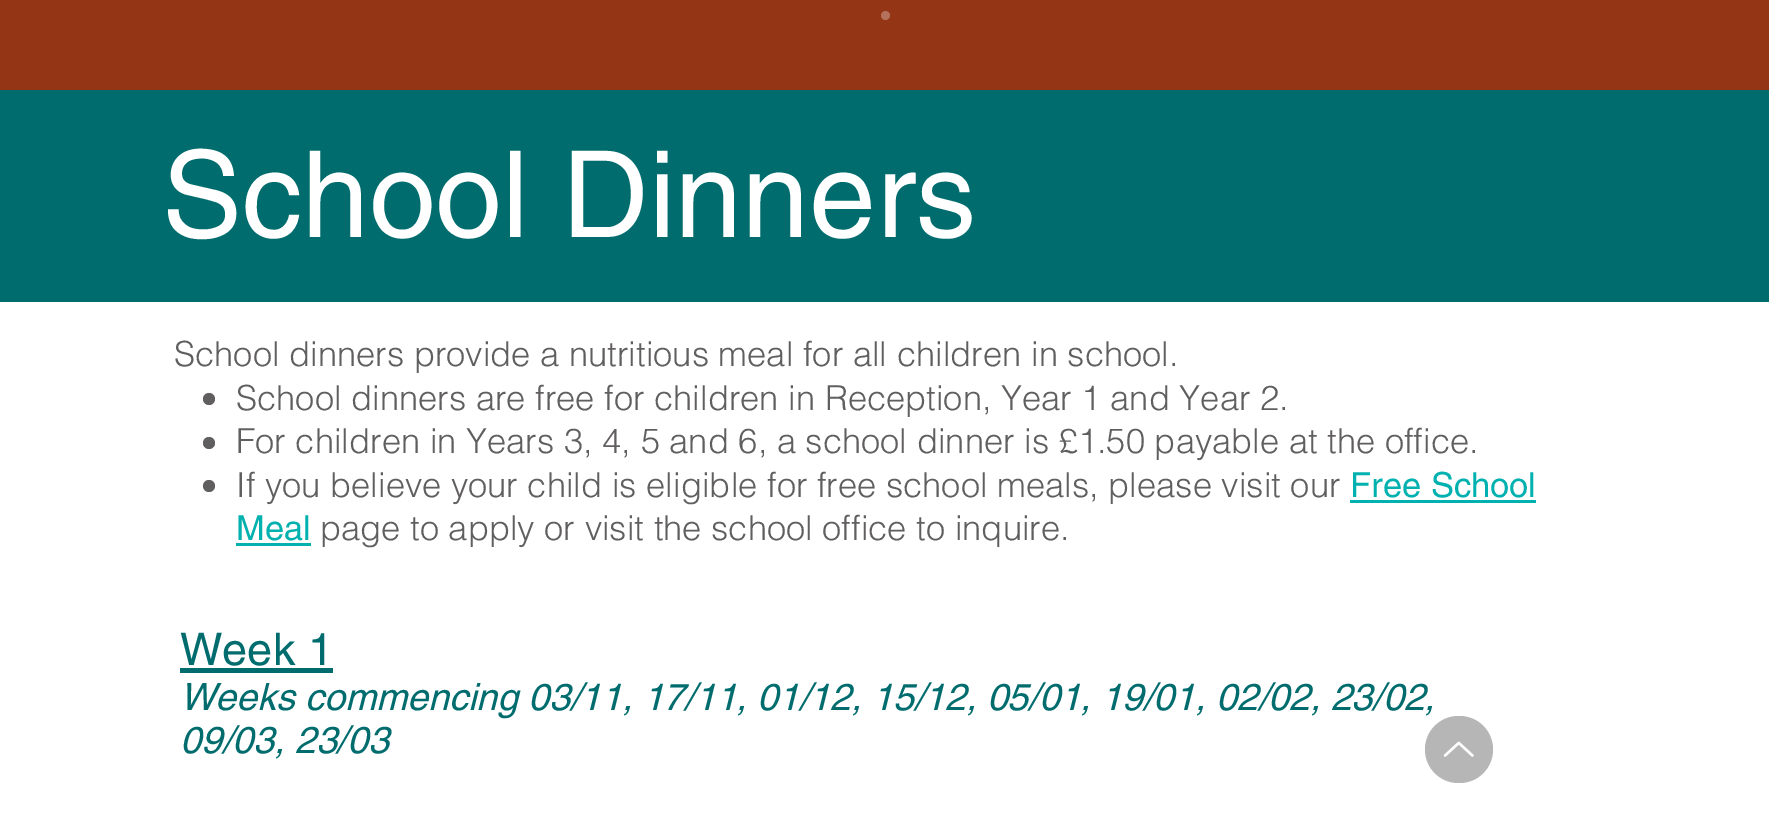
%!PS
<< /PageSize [1769 813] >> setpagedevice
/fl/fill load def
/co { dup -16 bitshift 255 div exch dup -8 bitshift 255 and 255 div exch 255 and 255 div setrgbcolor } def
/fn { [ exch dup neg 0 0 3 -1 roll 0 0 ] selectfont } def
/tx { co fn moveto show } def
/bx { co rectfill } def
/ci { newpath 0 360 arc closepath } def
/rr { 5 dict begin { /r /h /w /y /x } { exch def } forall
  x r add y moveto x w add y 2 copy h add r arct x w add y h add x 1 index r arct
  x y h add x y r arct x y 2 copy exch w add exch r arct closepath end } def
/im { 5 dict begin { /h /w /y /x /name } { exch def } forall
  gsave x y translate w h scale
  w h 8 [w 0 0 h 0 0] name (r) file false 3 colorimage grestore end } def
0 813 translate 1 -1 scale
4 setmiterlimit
0 0 1769 813 16#FFFFFF bx
0 0 1769 90 16#943616 bx
16#B4725C co
885.5 15.5 4.5 ci fl
0 90 1769 212 16#006C6D bx
16#605E5E co
209 399 6 ci fl
209 443 6 ci fl
209 486 6 ci fl
1350 500 186 3 16#01B1AF bx
236 543 75 3 16#01B1AF bx
180 668 153 5 16#006C6D bx
(School Dinners) 162 237 /helvetica-Regular 120 16#FFFFFF tx
(School dinners provide a nutritious meal for all children in school.) 174 366 /helvetica-Light 34.5 16#605E5E tx
(School dinners are free for children in Reception, Year 1 and Year 2.) 236 410 /helvetica-Light 34.5 16#605E5E tx
(For children in Years 3, 4, 5 and 6, a school dinner is £1.50 payable at the office.) 236 453 /helvetica-Light 34.5 16#605E5E tx
(If you believe your child is eligible for free school meals, please visit our) 236 497 /helvetica-Light 34.5 16#605E5E tx
(Free School) 1350 497 /helvetica-Regular 34.5 16#01B1AF tx
(Meal) 236 540 /helvetica-Regular 34.5 16#01B1AF tx
(page to apply or visit the school office to inquire.) 320 540 /helvetica-Light 34.5 16#605E5E tx
(Week 1) 180 665 /helvetica-Regular 45 16#006C6D tx
(Weeks commencing 03/11, 17/11, 01/12, 15/12, 05/01, 19/01, 02/02, 23/02,) 180 710 /helvetica-Italic 37.5 16#006C6D tx
(09/03, 23/03) 180 753 /helvetica-Italic 37.5 16#006C6D tx
16#B6B6B6 co
1425 716 68 67 33.5 rr fl
(media/1.raw) 1443 741 31 16 im
showpage
